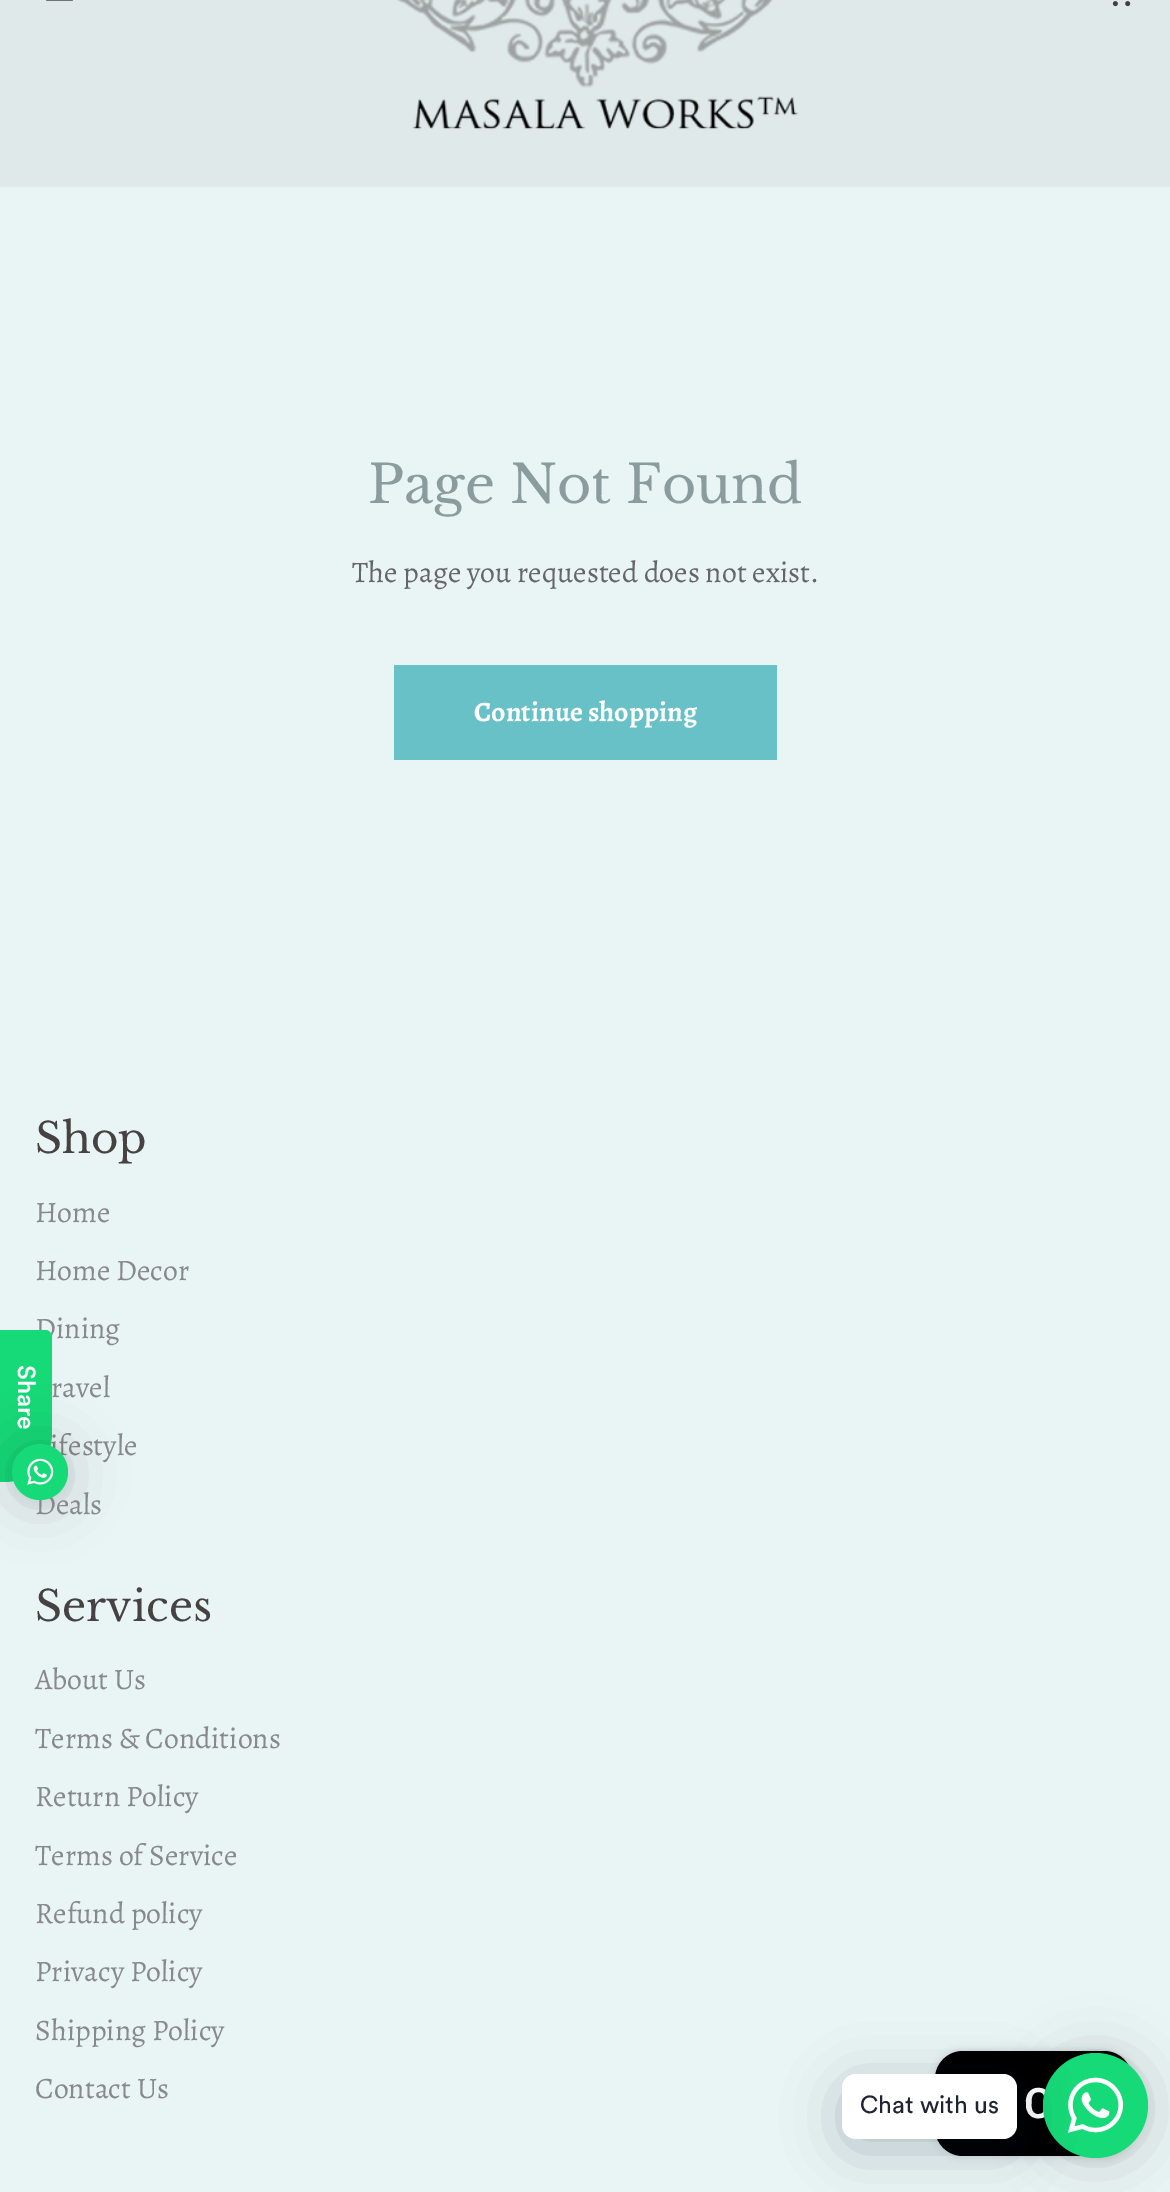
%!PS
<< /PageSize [1170 2192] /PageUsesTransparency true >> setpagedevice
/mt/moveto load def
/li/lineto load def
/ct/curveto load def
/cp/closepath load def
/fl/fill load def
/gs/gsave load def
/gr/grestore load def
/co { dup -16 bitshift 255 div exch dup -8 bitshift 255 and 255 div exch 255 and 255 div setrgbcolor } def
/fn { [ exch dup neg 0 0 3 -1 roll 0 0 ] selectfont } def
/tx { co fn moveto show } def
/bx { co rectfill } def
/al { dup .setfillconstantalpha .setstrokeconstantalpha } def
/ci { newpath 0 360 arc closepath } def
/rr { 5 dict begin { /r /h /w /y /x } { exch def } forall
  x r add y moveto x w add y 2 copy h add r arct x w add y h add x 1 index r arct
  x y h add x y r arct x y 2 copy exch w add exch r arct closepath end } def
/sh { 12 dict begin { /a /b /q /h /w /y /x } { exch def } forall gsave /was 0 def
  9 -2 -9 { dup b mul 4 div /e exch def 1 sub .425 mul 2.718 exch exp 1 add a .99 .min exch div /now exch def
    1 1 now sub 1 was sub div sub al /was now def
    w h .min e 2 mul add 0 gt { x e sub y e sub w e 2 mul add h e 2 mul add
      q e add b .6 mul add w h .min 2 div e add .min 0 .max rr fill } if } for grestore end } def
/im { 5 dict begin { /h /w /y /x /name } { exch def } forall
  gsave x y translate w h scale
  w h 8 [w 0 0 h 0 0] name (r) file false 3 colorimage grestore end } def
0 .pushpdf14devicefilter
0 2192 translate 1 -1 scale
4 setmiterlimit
0 0 1170 2192 16#E9F4F5 bx
0 0 1170 187 16#E0E9E9 bx
(media/1.raw) 46 0 27 1 im
(media/2.raw) 397 0 401 130 im
(media/3.raw) 1112 1 19 6 im
394 665 383 95 16#69C1C8 bx
16#000000 co
935 2051 197 105 28 4.5 .15 sh
935 2051 197 105 28 rr fl
1043 2056 105 105 52.5 28 .16 sh
1043 2055 105 105 52.5 5 .06 sh
(Page Not Found) 368 503 /LibreBaskerville-Regular 52.5 16#8A9C9D tx
(The page you requested does not exist.) 352 582 /Alegreya-Regular 29.75 16#666666 tx
(Continue shopping) 474 721 /Alegreya-Bold 28 16#FFFFFF tx
(Shop) 35 1153 /LibreBaskerville-Regular 42 16#464242 tx
(Home) 35 1222 /Alegreya-Regular 29.75 16#87898A tx
(Home Decor) 35 1280 /Alegreya-Regular 29.75 16#87898A tx
(Dining) 35 1338 /Alegreya-Regular 29.75 16#87898A tx
(ravel) 51 1397 /Alegreya-Regular 29.75 16#87898A tx
(ifestyle) 50 1455 /Alegreya-Regular 29.75 16#87898A tx
16#16D977 co
0 1482 mt 0 1330 li 46 1330 li 49 1330 52 1334 52 1337 ct 52 1433 li 52 1461 31 1482 4 1482 ct cp fl
16#000000 co
12 1446 56 56 28 5 .06 sh
12 1447 56 56 28 28 .16 sh
/Circular-Medium 24.5 fn
16#FFFFFF co
gs 18 1365 translate 90 rotate 0 0 mt (Share) show gr
(Deals) 35 1514 /Alegreya-Regular 29.75 16#87898A tx
16#16D977 co
40 1472 28 ci fl
(media/4.raw) 27 1458 27 27 im
(Services) 35 1621 /LibreBaskerville-Regular 42 16#464242 tx
(About Us) 35 1689 /Alegreya-Regular 29.75 16#87898A tx
(Terms & Conditions) 35 1748 /Alegreya-Regular 29.75 16#87898A tx
(Return Policy) 35 1806 /Alegreya-Regular 29.75 16#87898A tx
(Terms of Service) 35 1865 /Alegreya-Regular 29.75 16#87898A tx
(Refund policy) 35 1923 /Alegreya-Regular 29.75 16#87898A tx
(Privacy Policy) 35 1981 /Alegreya-Regular 29.75 16#87898A tx
(Shipping Policy) 35 2040 /Alegreya-Regular 29.75 16#87898A tx
(Contact Us) 35 2098 /Alegreya-Regular 29.75 16#87898A tx
(C) 1024 2118 /Roboto-SemiBold 42 16#FFFFFF tx
16#16D977 co
1095.5 2105.5 52.5 ci fl
16#00122E co
842 2084 175 65 14 28 .24 sh
(media/5.raw) 1068 2077 56 56 im
16#FFFFFF co
842 2074 175 65 14 rr fl
(Chat with us) 860 2113 /Circular-Regular 24.5 16#1E2433 tx
.poppdf14devicefilter showpage
